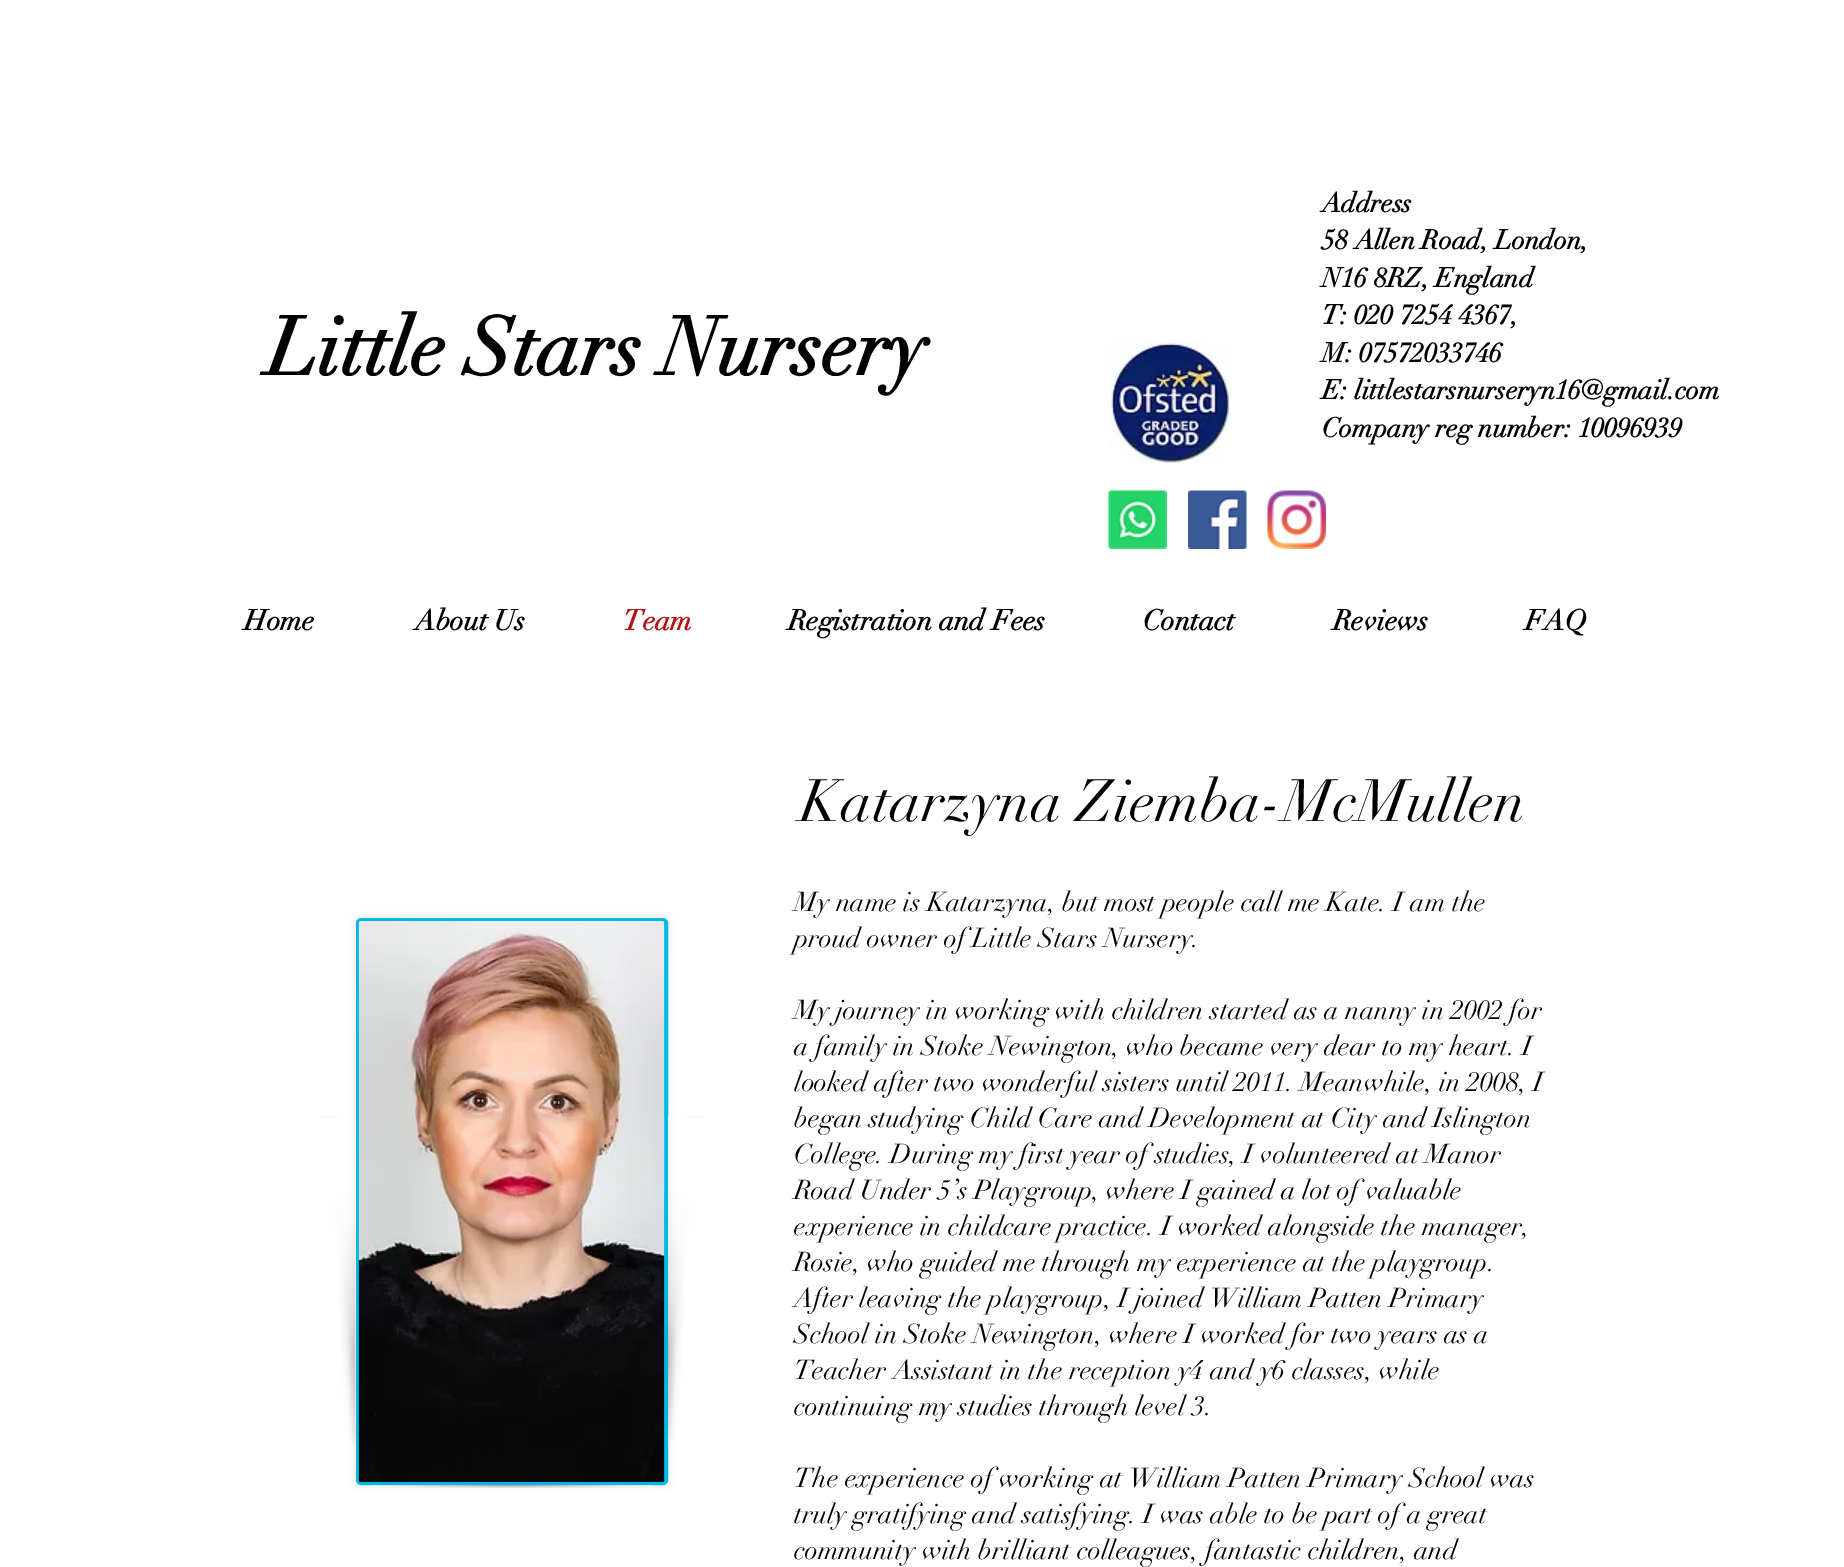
%!PS
<< /PageSize [1844 1567] /PageUsesTransparency true >> setpagedevice
/fl/fill load def
/st/stroke load def
/gs/gsave load def
/gr/grestore load def
/lw/setlinewidth load def
/co { dup -16 bitshift 255 div exch dup -8 bitshift 255 and 255 div exch 255 and 255 div setrgbcolor } def
/fn { [ exch dup neg 0 0 3 -1 roll 0 0 ] selectfont } def
/tx { co fn moveto show } def
/bx { co rectfill } def
/al { dup .setfillconstantalpha .setstrokeconstantalpha } def
/rr { 5 dict begin { /r /h /w /y /x } { exch def } forall
  x r add y moveto x w add y 2 copy h add r arct x w add y h add x 1 index r arct
  x y h add x y r arct x y 2 copy exch w add exch r arct closepath end } def
/sh { 12 dict begin { /a /b /q /h /w /y /x } { exch def } forall gsave /was 0 def
  9 -2 -9 { dup b mul 4 div /e exch def 1 sub .425 mul 2.718 exch exp 1 add a .99 .min exch div /now exch def
    1 1 now sub 1 was sub div sub al /was now def
    w h .min e 2 mul add 0 gt { x e sub y e sub w e 2 mul add h e 2 mul add
      q e add b .6 mul add w h .min 2 div e add .min 0 .max rr fill } if } for grestore end } def
/im { 5 dict begin { /h /w /y /x /name } { exch def } forall
  gsave x y translate w h scale
  w h 8 [w 0 0 h 0 0] name (r) file false 3 colorimage grestore end } def
0 .pushpdf14devicefilter
0 1567 translate 1 -1 scale
4 setmiterlimit
0 0 1844 1567 16#FFFFFF bx
(media/1.raw) 1109 341 121 122 im
(media/2.raw) 1108 490 59 59 im
(media/3.raw) 1188 490 59 59 im
(media/4.raw) 1267 490 59 59 im
16#000000 co
356 918 312 567 5 4 .1 sh
(media/5.raw) 320 1116 36 329 im
16#00B9E8 co
357.5 919.5 309 564 3.5 rr gs fl gr
3 lw
st
(media/6.raw) 358 921 307 561 im
(media/7.raw) 371 1485 281 3 im
(media/8.raw) 667 1116 36 329 im
(Little Stars Nursery) 267 375 /didot-Bold 81 16#000000 tx
(Address) 1322 212 /didot-Bold 27 16#000000 tx
(58 Allen Road, London,) 1322 249 /didot-Bold 27 16#000000 tx
(N16 8RZ, England) 1322 287 /didot-Bold 27 16#000000 tx
(T: 020 7254 4367,) 1322 324 /didot-Bold 27 16#000000 tx
(M: 07572033746) 1322 362 /didot-Bold 27 16#000000 tx
(E: littlestarsnurseryn16@gmail.com) 1322 399 /didot-Bold 27 16#000000 tx
(Company reg number: 10096939) 1322 437 /didot-Bold 27 16#000000 tx
(Home) 244 630 /didot-Bold 28.5 16#000000 tx
(About Us) 415 630 /didot-Bold 28.5 16#000000 tx
(Team) 623 630 /didot-Bold 28.5 16#B51212 tx
(Registration and Fees) 788 630 /didot-Bold 28.5 16#000000 tx
(Contact) 1143 630 /didot-Bold 28.5 16#000000 tx
(Reviews) 1333 630 /didot-Bold 28.5 16#000000 tx
(FAQ) 1525 630 /didot-Bold 28.5 16#000000 tx
(Katarzyna Ziemba-McMullen) 800 821 /didot-Regular 58.5 16#000000 tx
(My name is Katarzyna, but most people call me Kate. I am the) 794 911 /didot-Regular 27 16#000000 tx
(proud owner of Little Stars Nursery.) 794 947 /didot-Regular 27 16#000000 tx
(My journey in working with children started as a nanny in 2002 for) 794 1019 /didot-Regular 27 16#000000 tx
(a family in Stoke Newington, who became very dear to my heart. I) 794 1055 /didot-Regular 27 16#000000 tx
(looked after two wonderful sisters until 2011. Meanwhile, in 2008, I) 794 1091 /didot-Regular 27 16#000000 tx
(began studying Child Care and Development at City and Islington) 794 1127 /didot-Regular 27 16#000000 tx
(College. During my first year of studies, I volunteered at Manor) 794 1163 /didot-Regular 27 16#000000 tx
(Road Under 5’s Playgroup, where I gained a lot of valuable) 794 1199 /didot-Regular 27 16#000000 tx
(experience in childcare practice. I worked alongside the manager,) 794 1235 /didot-Regular 27 16#000000 tx
(Rosie, who guided me through my experience at the playgroup.) 794 1271 /didot-Regular 27 16#000000 tx
(After leaving the playgroup, I joined William Patten Primary) 794 1307 /didot-Regular 27 16#000000 tx
(School in Stoke Newington, where I worked for two years as a) 794 1343 /didot-Regular 27 16#000000 tx
(Teacher Assistant in the reception y4 and y6 classes, while) 794 1379 /didot-Regular 27 16#000000 tx
(continuing my studies through level 3.) 794 1415 /didot-Regular 27 16#000000 tx
(The experience of working at William Patten Primary School was) 794 1487 /didot-Regular 27 16#000000 tx
(truly gratifying and satisfying. I was able to be part of a great) 794 1523 /didot-Regular 27 16#000000 tx
(community with brilliant colleagues, fantastic children, and) 794 1559 /didot-Regular 27 16#000000 tx
.poppdf14devicefilter showpage
